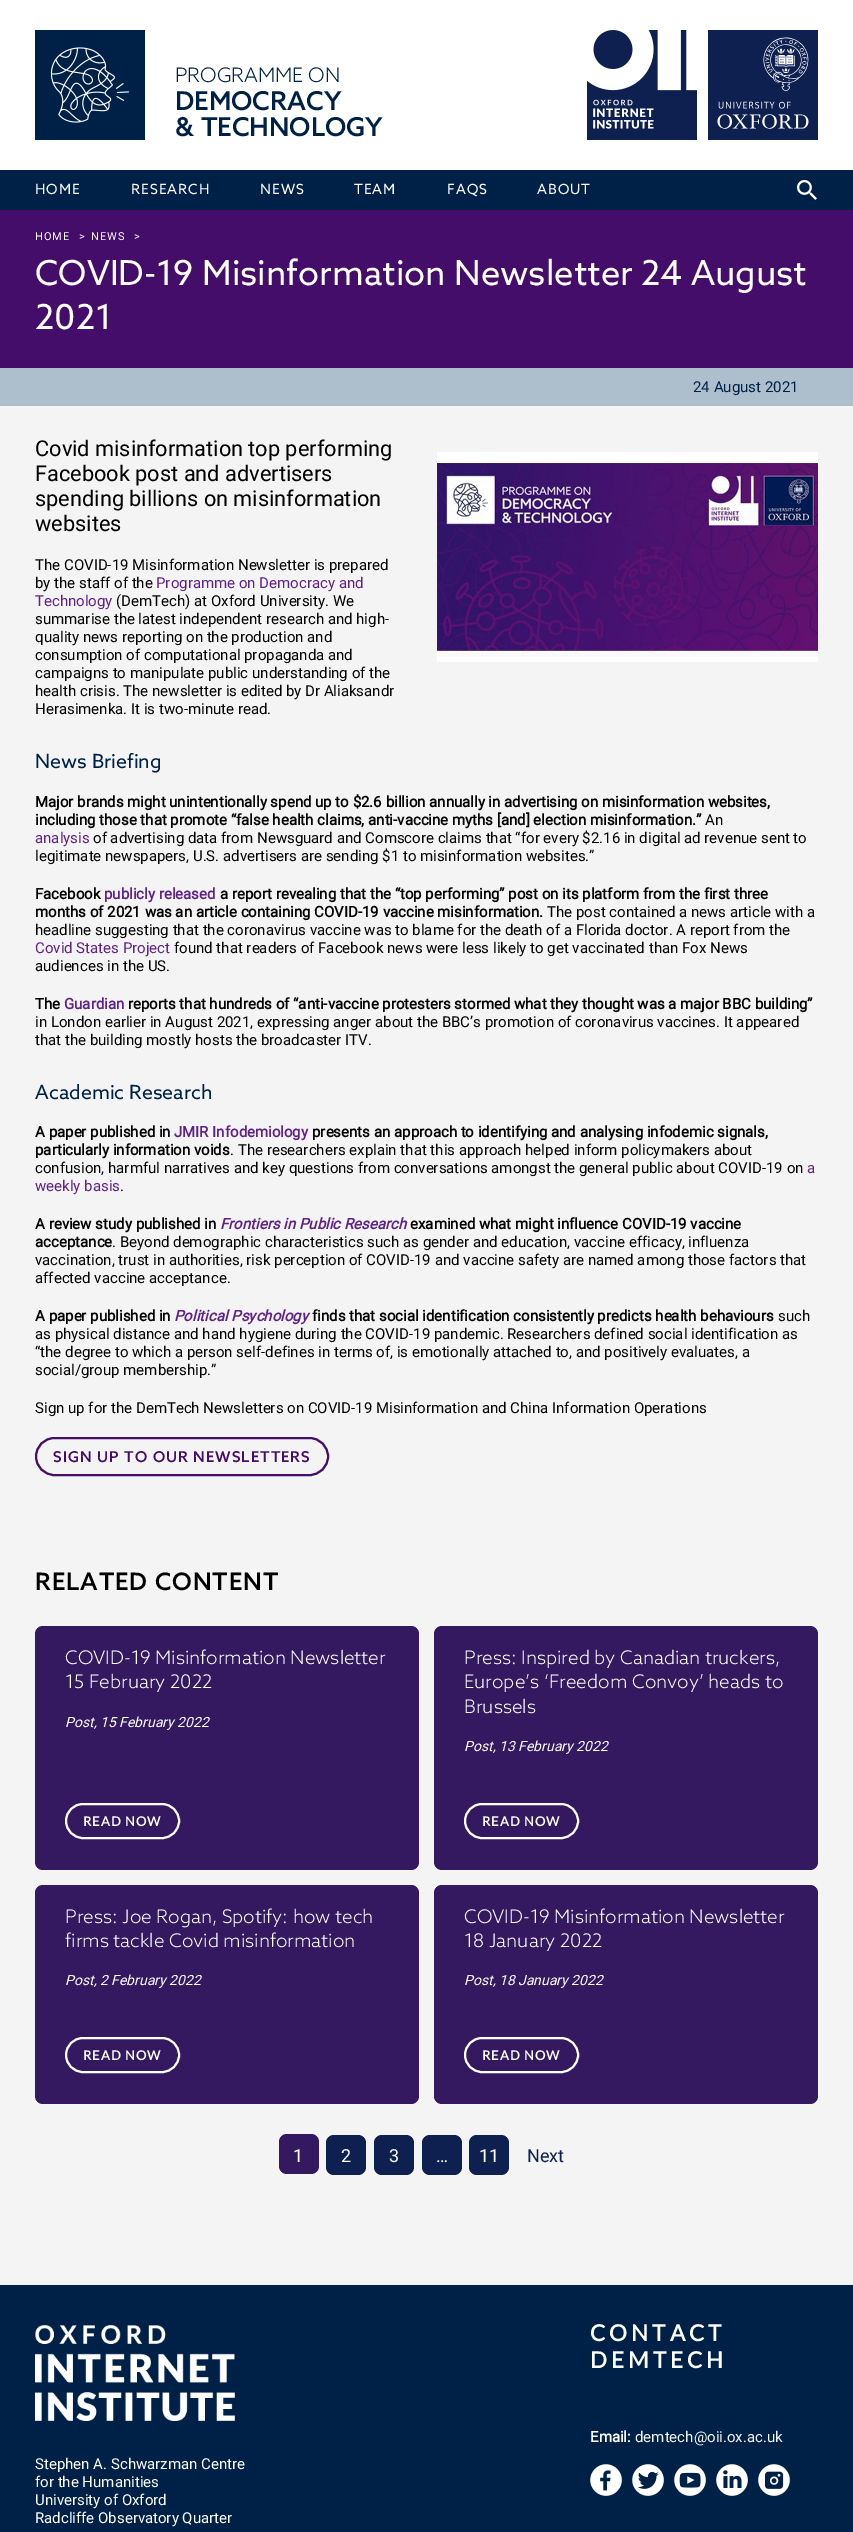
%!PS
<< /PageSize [853 2532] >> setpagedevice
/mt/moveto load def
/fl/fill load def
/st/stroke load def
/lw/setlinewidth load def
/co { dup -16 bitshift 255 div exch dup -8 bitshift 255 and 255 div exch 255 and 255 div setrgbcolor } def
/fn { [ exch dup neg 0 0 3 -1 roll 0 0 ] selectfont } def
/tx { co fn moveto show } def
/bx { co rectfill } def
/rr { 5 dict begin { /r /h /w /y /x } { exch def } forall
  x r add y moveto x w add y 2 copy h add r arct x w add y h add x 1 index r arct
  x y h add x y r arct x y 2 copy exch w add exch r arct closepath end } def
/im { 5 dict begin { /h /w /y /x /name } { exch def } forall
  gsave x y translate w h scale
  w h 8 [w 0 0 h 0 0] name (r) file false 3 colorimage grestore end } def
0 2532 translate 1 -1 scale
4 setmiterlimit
0 0 853 2532 16#FFFFFF bx
(media/1.raw) 35 30 110 110 im
(media/2.raw) 587 30 110 110 im
(media/3.raw) 708 30 110 110 im
0 170 853 40 16#002147 bx
(media/4.raw) 797 180 20 20 im
0 406 853 1879 16#F4F4F4 bx
0 210 853 158 16#440D69 bx
0 368 853 38 16#ADBECC bx
(media/5.raw) 437 452 381 210 im
16#440D69 co
2 lw
36 1438 292 37 18.5 rr st
16#341960 co
35 1626 384 244 8 rr fl
16#FFFFFF co
66 1804 113 34 17 rr st
16#341960 co
434 1626 384 244 8 rr fl
16#FFFFFF co
465 1804 113 34 17 rr st
16#341960 co
35 1885 384 219 8 rr fl
16#FFFFFF co
66 2038 113 34 17 rr st
16#341960 co
434 1885 384 219 8 rr fl
16#FFFFFF co
465 2038 113 34 17 rr st
16#341960 co
279 2134 40 40 8 rr fl
16#0E2050 co
326 2135 40 40 8 rr fl
374 2135 40 40 8 rr fl
422 2135 40 40 8 rr fl
469 2135 40 40 8 rr fl
0 2285 853 247 16#002147 bx
(media/6.raw) 590 2464 32 32 im
(media/7.raw) 632 2464 32 32 im
(media/8.raw) 674 2464 32 32 im
(media/9.raw) 716 2464 32 32 im
(media/10.raw) 758 2464 32 32 im
(media/11.raw) 35 2325 200 96 im
(PROGRAMME ON) 175 82 /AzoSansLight-Light 20 16#002147 tx
(DEMOCRACY) 175 110 /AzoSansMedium-Medium 26 16#002147 tx
175 136 mt 1 0 32 (& TECHNOLOGY) widthshow
/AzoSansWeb-Regular 14 fn
16#FFFFFF co
35 194 mt 1 0 (HOME) ashow
131 194 mt 1 0 (RESEARCH) ashow
260 194 mt 1 0 (NEWS) ashow
354 194 mt 1 0 (TEAM) ashow
447 194 mt 1 0 (FAQS) ashow
537 194 mt 1 0 (ABOUT) ashow
/Roboto-Regular 11 fn
35 240 mt 1 0 (HOME) ashow
79 240 mt 1 0 (>) ashow
91 240 mt 1 0 (NEWS) ashow
134 240 mt 1 0 (>) ashow
(COVID-19 Misinformation Newsletter 24 August) 35 285 /AzoSansWeb-Regular 34.5 16#FFFFFF tx
(2021) 35 329 /AzoSansWeb-Regular 34.5 16#FFFFFF tx
(24 August 2021) 693 392 /Roboto-Regular 15 16#002147 tx
(Covid misinformation top performing) 35 456 /Roboto-Regular 21.75 16#000000 tx
(Facebook post and advertisers) 35 481 /Roboto-Regular 21.75 16#000000 tx
(spending billions on misinformation) 35 506 /Roboto-Regular 21.75 16#000000 tx
(websites) 35 531 /Roboto-Regular 21.75 16#000000 tx
(The COVID-19 Misinformation Newsletter is prepared) 35 570 /Roboto-Regular 15 16#000000 tx
(by the staff of the) 35 588 /Roboto-Regular 15 16#000000 tx
(Programme on Democracy and) 156 588 /Roboto-Regular 15 16#5F2288 tx
(Technology) 35 606 /Roboto-Regular 15 16#5F2288 tx
(\(DemTech\) at Oxford University. We) 116 606 /Roboto-Regular 15 16#000000 tx
(summarise the latest independent research and high-) 35 624 /Roboto-Regular 15 16#000000 tx
(quality news reporting on the production and) 35 642 /Roboto-Regular 15 16#000000 tx
(consumption of computational propaganda and) 35 660 /Roboto-Regular 15 16#000000 tx
(campaigns to manipulate public understanding of the) 35 678 /Roboto-Regular 15 16#000000 tx
(health crisis. The newsletter is edited by Dr Aliaksandr) 35 696 /Roboto-Regular 15 16#000000 tx
(Herasimenka. It is two-minute read.) 35 714 /Roboto-Regular 15 16#000000 tx
(News Briefing) 35 768 /AzoSansWeb-Regular 19.5 16#002147 tx
(Major brands might unintentionally spend up to $2.6 billion annually in advertising on misinformation websites,) 35 807 /Roboto-Bold 15 16#000000 tx
(including those that promote “false health claims, anti-vaccine myths [and] election misinformation.”) 35 825 /Roboto-Bold 15 16#000000 tx
(An) 705 825 /Roboto-Regular 15 16#000000 tx
(analysis) 35 843 /Roboto-Regular 15 16#5F2288 tx
(of advertising data from Newsguard and Comscore claims that “for every $2.16 in digital ad revenue sent to) 93 843 /Roboto-Regular 15 16#000000 tx
(legitimate newspapers, U.S. advertisers are sending $1 to misinformation websites.”) 35 861 /Roboto-Regular 15 16#000000 tx
(Facebook) 35 899 /Roboto-Bold 15 16#000000 tx
(publicly released) 104 899 /Roboto-Bold 15 16#5F2288 tx
(a report revealing that the “top performing” post on its platform from the first three) 220 899 /Roboto-Bold 15 16#000000 tx
(months of 2021 was an article containing COVID-19 vaccine misinformation.) 35 917 /Roboto-Bold 15 16#000000 tx
(The post contained a news article with a) 547 917 /Roboto-Regular 15 16#000000 tx
(headline suggesting that the coronavirus vaccine was to blame for the death of a Florida doctor. A report from the) 35 935 /Roboto-Regular 15 16#000000 tx
(Covid States Project) 35 953 /Roboto-Regular 15 16#5F2288 tx
(found that readers of Facebook news were less likely to get vaccinated than Fox News) 174 953 /Roboto-Regular 15 16#000000 tx
(audiences in the US.) 35 971 /Roboto-Regular 15 16#000000 tx
(The) 35 1009 /Roboto-Bold 15 16#000000 tx
(Guardian) 64 1009 /Roboto-Bold 15 16#5F2288 tx
(reports that hundreds of “anti-vaccine protesters stormed what they thought was a major BBC building”) 128 1009 /Roboto-Bold 15 16#000000 tx
(in London earlier in August 2021, expressing anger about the BBC’s promotion of coronavirus vaccines. It appeared) 35 1027 /Roboto-Regular 15 16#000000 tx
(that the building mostly hosts the broadcaster ITV.) 35 1045 /Roboto-Regular 15 16#000000 tx
(Academic Research) 35 1099 /AzoSansWeb-Regular 19.5 16#002147 tx
(A paper published in) 35 1137 /Roboto-Bold 15 16#000000 tx
(JMIR Infodemiology) 174 1137 /Roboto-Bold 15 16#5F2288 tx
(presents an approach to identifying and analysing infodemic signals,) 312 1137 /Roboto-Bold 15 16#000000 tx
(particularly information voids) 35 1155 /Roboto-Bold 15 16#000000 tx
(. The researchers explain that this approach helped inform policymakers about) 230 1155 /Roboto-Regular 15 16#000000 tx
(confusion, harmful narratives and key questions from conversations amongst the general public about COVID-19 on) 35 1173 /Roboto-Regular 15 16#000000 tx
(a) 807 1173 /Roboto-Regular 15 16#5F2288 tx
(weekly basis) 35 1191 /Roboto-Regular 15 16#5F2288 tx
(.) 120 1191 /Roboto-Regular 15 16#000000 tx
(A review study published in) 35 1229 /Roboto-Bold 15 16#000000 tx
(Frontiers in Public Research) 220 1229 /Roboto-BoldItalic 15 16#5F2288 tx
(examined what might influence COVID-19 vaccine) 410 1229 /Roboto-Bold 15 16#000000 tx
(acceptance) 35 1247 /Roboto-Bold 15 16#000000 tx
(. Beyond demographic characteristics such as gender and education, vaccine efficacy, influenza) 112 1247 /Roboto-Regular 15 16#000000 tx
(vaccination, trust in authorities, risk perception of COVID-19 and vaccine safety are named among those factors that) 35 1265 /Roboto-Regular 15 16#000000 tx
(affected vaccine acceptance.) 35 1283 /Roboto-Regular 15 16#000000 tx
(A paper published in) 35 1321 /Roboto-Bold 15 16#000000 tx
(Political Psychology) 174 1321 /Roboto-BoldItalic 15 16#5F2288 tx
(finds that social identification consistently predicts health behaviours) 312 1321 /Roboto-Bold 15 16#000000 tx
(such) 778 1321 /Roboto-Regular 15 16#000000 tx
(as physical distance and hand hygiene during the COVID-19 pandemic. Researchers defined social identification as) 35 1339 /Roboto-Regular 15 16#000000 tx
(“the degree to which a person self-defines in terms of, is emotionally attached to, and positively evaluates, a) 35 1357 /Roboto-Regular 15 16#000000 tx
(social/group membership.”) 35 1375 /Roboto-Regular 15 16#000000 tx
(Sign up for the DemTech Newsletters on COVID-19 Misinformation and China Information Operations) 35 1413 /Roboto-Regular 15 16#000000 tx
/AzoSansMedium-Medium 15 fn
16#440D69 co
53 1462 mt 1 0 (SIGN UP TO OUR NEWSLETTERS) ashow
/AzoSansMedium-Medium 24 fn
16#000000 co
35 1590 mt 1 0 (RELATED CONTENT) ashow
(COVID-19 Misinformation Newsletter) 65 1664 /AzoSansLight-Light 18.75 16#FFFFFF tx
(15 February 2022) 65 1688 /AzoSansLight-Light 18.75 16#FFFFFF tx
(Post, 15 February 2022) 65 1727 /Roboto-Italic 14 16#FFFFFF tx
/Lato-Bold 13 fn
83 1826 mt 1 0 (READ NOW) ashow
(Press: Inspired by Canadian truckers,) 464 1664 /AzoSansLight-Light 18.75 16#FFFFFF tx
(Europe’s ‘Freedom Convoy’ heads to) 464 1688 /AzoSansLight-Light 18.75 16#FFFFFF tx
(Brussels) 464 1713 /AzoSansLight-Light 18.75 16#FFFFFF tx
(Post, 13 February 2022) 464 1751 /Roboto-Italic 14 16#FFFFFF tx
/Lato-Bold 13 fn
482 1826 mt 1 0 (READ NOW) ashow
(Press: Joe Rogan, Spotify: how tech) 65 1923 /AzoSansLight-Light 18.75 16#FFFFFF tx
(firms tackle Covid misinformation) 65 1947 /AzoSansLight-Light 18.75 16#FFFFFF tx
(Post, 2 February 2022) 65 1985 /Roboto-Italic 14 16#FFFFFF tx
/Lato-Bold 13 fn
83 2060 mt 1 0 (READ NOW) ashow
(COVID-19 Misinformation Newsletter) 464 1923 /AzoSansLight-Light 18.75 16#FFFFFF tx
(18 January 2022) 464 1947 /AzoSansLight-Light 18.75 16#FFFFFF tx
(Post, 18 January 2022) 464 1985 /Roboto-Italic 14 16#FFFFFF tx
/Lato-Bold 13 fn
482 2060 mt 1 0 (READ NOW) ashow
(1) 293 2162 /Roboto-Regular 18 16#FFFFFF tx
(2) 341 2162 /Roboto-Regular 18 16#FFFFFF tx
(3) 389 2162 /Roboto-Regular 18 16#FFFFFF tx
(…) 436 2162 /Roboto-Regular 18 16#FFFFFF tx
(11) 479 2162 /Roboto-Regular 18 16#FFFFFF tx
(Next) 527 2162 /Roboto-Regular 18 16#0E2050 tx
/Lato-Bold 22.5 fn
16#FFFFFF co
590 2341 mt 4 0 (CONTACT) ashow
590 2368 mt 4 0 (DEMTECH) ashow
(Email:) 590 2442 /Roboto-Bold 15 16#FFFFFF tx
(demtech@oii.ox.ac.uk) 635 2442 /Roboto-Regular 15 16#F4F4F4 tx
(Stephen A. Schwarzman Centre) 35 2469 /Roboto-Regular 15 16#FFFFFF tx
(for the Humanities) 35 2487 /Roboto-Regular 15 16#FFFFFF tx
(University of Oxford) 35 2505 /Roboto-Regular 15 16#FFFFFF tx
(Radcliffe Observatory Quarter) 35 2523 /Roboto-Regular 15 16#FFFFFF tx
showpage
